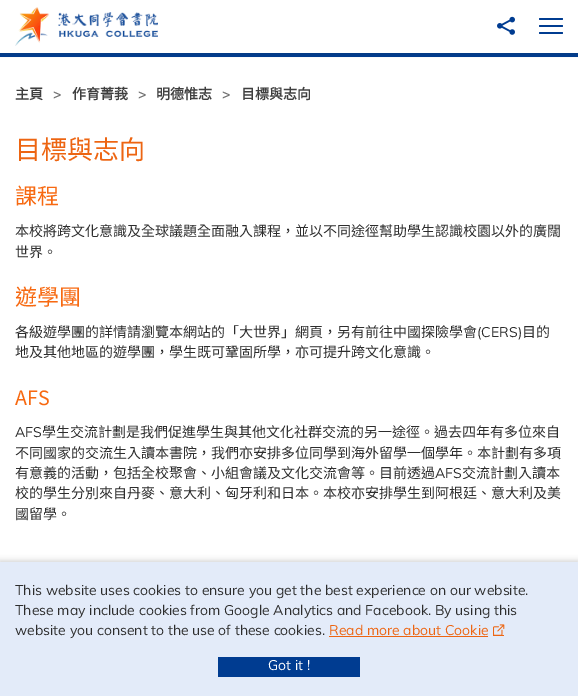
%!PS
<< /PageSize [578 696] /PageUsesTransparency true >> setpagedevice
/fl/fill load def
/gs/gsave load def
/gr/grestore load def
/co { dup -16 bitshift 255 div exch dup -8 bitshift 255 and 255 div exch 255 and 255 div setrgbcolor } def
/fn { [ exch dup neg 0 0 3 -1 roll 0 0 ] selectfont } def
/tx { co fn moveto show } def
/bx { co rectfill } def
/al { dup .setfillconstantalpha .setstrokeconstantalpha } def
/rr { 5 dict begin { /r /h /w /y /x } { exch def } forall
  x r add y moveto x w add y 2 copy h add r arct x w add y h add x 1 index r arct
  x y h add x y r arct x y 2 copy exch w add exch r arct closepath end } def
/sh { 12 dict begin { /a /b /q /h /w /y /x } { exch def } forall gsave /was 0 def
  9 -2 -9 { dup b mul 4 div /e exch def 1 sub .425 mul 2.718 exch exp 1 add a .99 .min exch div /now exch def
    1 1 now sub 1 was sub div sub al /was now def
    w h .min e 2 mul add 0 gt { x e sub y e sub w e 2 mul add h e 2 mul add
      q e add b .6 mul add w h .min 2 div e add .min 0 .max rr fill } if } for grestore end } def
/im { 5 dict begin { /h /w /y /x /name } { exch def } forall
  gsave x y translate w h scale
  w h 8 [w 0 0 h 0 0] name (r) file false 3 colorimage grestore end } def
0 .pushpdf14devicefilter
0 696 translate 1 -1 scale
4 setmiterlimit
0 0 578 696 16#FFFFFF bx
0 53 578 4 16#003C91 bx
gs
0 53 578 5 rectclip
16#323232 co
0 2 578 53 0 2.5 .15 sh
gr
(media/1.raw) 15 7 143 39 im
(media/2.raw) 497 16 18 19 im
539 18 24 2 1 rr fl
539 25 24 2 1 rr fl
539 32 24 2 1 rr fl
16#000000 co
0 561 578 134 0 3 .2 sh
0 562 578 134 16#E3EBF9 bx
329 636 159 1 16#ED6512 bx
493 635 11 1 16#ED6512 bx
(media/3.raw) 493 624 12 11 im
218 657 142 20 16#003C91 bx
(主頁) 15 99 /NotoSansCJKHK-Bold 14 16#3F3F3F tx
(>) 53 99 /Muli-Bold 14 16#737373 tx
(作育菁莪) 72 99 /NotoSansCJKHK-Bold 14 16#3F3F3F tx
(>) 138 99 /Muli-Bold 14 16#737373 tx
(明德惟志) 156 99 /NotoSansCJKHK-Bold 14 16#3F3F3F tx
(>) 222 99 /Muli-Bold 14 16#737373 tx
(目標與志向) 241 99 /NotoSansCJKHK-Bold 14 16#3F3F3F tx
(目標與志向) 15 159 /NotoSansCJKHK-Regular 26 16#ED6512 tx
(課程) 15 204 /NotoSansCJKHK-Regular 22 16#F76911 tx
(本校將跨文化意識及全球議題全面融入課程，並以不同途徑幫助學生認識校園以外的廣闊) 15 236 /NotoSansCJKHK-Regular 14 16#2D2D2D tx
(世界。) 15 257 /NotoSansCJKHK-Regular 14 16#2D2D2D tx
(遊學團) 15 305 /NotoSansCJKHK-Regular 22 16#F76911 tx
(各級遊學團的詳情請瀏覽本網站的「大世界」網頁，另有前往中國探險學會) 15 337 /NotoSansCJKHK-Regular 14 16#2D2D2D tx
(\(CERS\)) 477 337 /Muli-Regular 14 16#2D2D2D tx
(目的) 522 337 /NotoSansCJKHK-Regular 14 16#2D2D2D tx
(地及其他地區的遊學團，學生既可鞏固所學，亦可提升跨文化意識。) 15 357 /NotoSansCJKHK-Regular 14 16#2D2D2D tx
(AFS) 15 405 /SourceSansPro-Regular 22 16#F76911 tx
(AFS) 15 437 /Muli-Regular 14 16#2D2D2D tx
(學生交流計劃是我們促進學生與其他文化社群交流的另一途徑。過去四年有多位來自) 42 437 /NotoSansCJKHK-Regular 14 16#2D2D2D tx
(不同國家的交流生入讀本書院，我們亦安排多位同學到海外留學一個學年。本計劃有多項) 15 458 /NotoSansCJKHK-Regular 14 16#2D2D2D tx
(有意義的活動，包括全校聚會、小組會議及文化交流會等。目前透過) 15 478 /NotoSansCJKHK-Regular 14 16#2D2D2D tx
(AFS) 435 478 /Muli-Regular 14 16#2D2D2D tx
(交流計劃入讀本) 462 478 /NotoSansCJKHK-Regular 14 16#2D2D2D tx
(校的學生分別來自丹麥、意大利、匈牙利和日本。本校亦安排學生到阿根廷、意大利及美) 15 498 /NotoSansCJKHK-Regular 14 16#2D2D2D tx
(國留學。) 15 519 /NotoSansCJKHK-Regular 14 16#2D2D2D tx
(This website uses cookies to ensure you get the best experience on our website.) 15 595 /Muli-Regular 14 16#2D2D2D tx
(These may include cookies from Google Analytics and Facebook. By using this) 15 615 /Muli-Regular 14 16#2D2D2D tx
(website you consent to the use of these cookies.) 15 635 /Muli-Regular 14 16#2D2D2D tx
(Read more about Cookie) 329 635 /Muli-Regular 14 16#ED6512 tx
(Got it !) 268 670 /Muli-Regular 14 16#FFFFFF tx
.poppdf14devicefilter showpage
